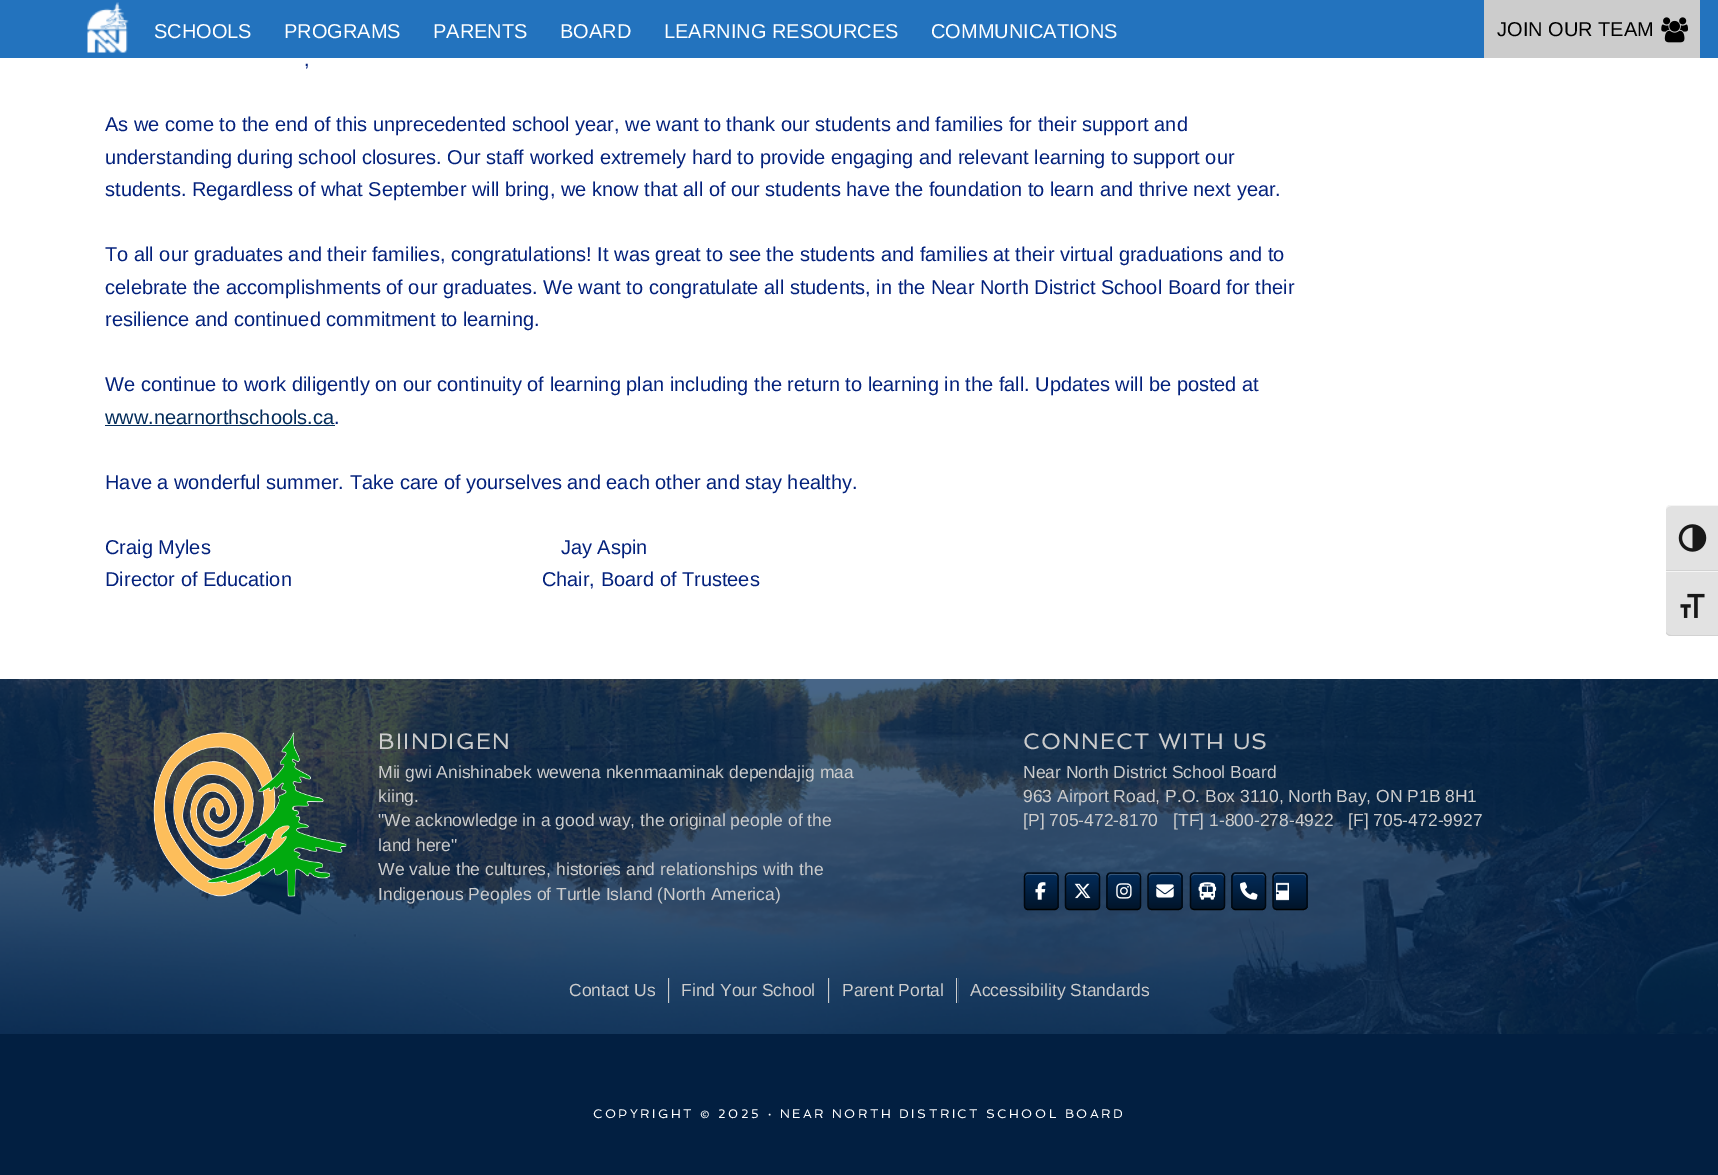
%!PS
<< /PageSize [1718 1175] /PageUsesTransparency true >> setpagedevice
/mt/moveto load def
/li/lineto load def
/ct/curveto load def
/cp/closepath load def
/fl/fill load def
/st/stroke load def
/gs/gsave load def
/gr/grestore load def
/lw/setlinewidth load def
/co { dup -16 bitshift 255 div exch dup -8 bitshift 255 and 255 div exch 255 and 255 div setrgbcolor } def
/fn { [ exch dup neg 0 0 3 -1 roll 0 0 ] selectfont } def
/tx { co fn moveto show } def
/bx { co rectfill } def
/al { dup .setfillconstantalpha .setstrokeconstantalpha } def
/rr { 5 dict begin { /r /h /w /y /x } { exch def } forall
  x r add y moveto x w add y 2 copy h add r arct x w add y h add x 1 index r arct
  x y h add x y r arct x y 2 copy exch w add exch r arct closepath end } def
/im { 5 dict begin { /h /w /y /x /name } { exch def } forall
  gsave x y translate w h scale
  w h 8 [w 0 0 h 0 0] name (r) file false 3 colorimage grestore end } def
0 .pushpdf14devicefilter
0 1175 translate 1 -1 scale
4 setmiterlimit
0 0 1718 1175 16#FFFFFF bx
0 0 1718 58 16#2373BE bx
(media/1.raw) 87 2 42 51 im
1484 0 216 58 16#CCCCCC bx
(media/2.raw) 1661 17 27 26 im
105 425 230 1 16#032C5A bx
(media/3.raw) 0 679 1718 355 im
(media/4.raw) 153 732 194 165 im
gs
1024 873 35 37 5 rr clip newpath
gs 1024 873 mt 1059 873 li 1059 874 li 1024 874 li cp clip newpath
<< /ShadingType 2 /ColorSpace /DeviceRGB /Coords [1025 874 1025 839] /Extend [true true] /Function << /FunctionType 2 /Domain [0 1] /C0 [.004 .078 .161] /C1 [.012 .173 .353] /N 1 >> >> shfill gr
gs 1024 874 mt 1059 874 li 1059 909 li 1024 909 li cp clip newpath
<< /ShadingType 2 /ColorSpace /DeviceRGB /Coords [1025 909 1025 874] /Extend [true true] /Function << /FunctionType 2 /Domain [0 1] /C0 [.004 .078 .161] /C1 [.012 .173 .353] /N 1 >> >> shfill gr
gr
16#35567A co
1028 875 mt 1054 875 li 1056 875 1058 876 1058 878 ct 1058 873 1054.5 874 1050.5 874 ct 1032.5 874 li 1028.5 874 1025 873 1025 878 ct 1025 876 1026 875 1028 875 ct cp fl
16#010D1A co
1.2 lw
1025.5 874 mt 1026 873.5 1027 873 1028 873 ct 1054.5 873 li 1055.5 873 1056.5 873.5 1057 874 ct st
16#010810 co
1057 874 mt 1057.5 875 1058 876 1058 877 ct 1058 905.5 li 1058 906.5 1057.5 907.5 1057 908.5 ct st
16#000101 co
1057 908.5 mt 1056.5 909 1055.5 909.5 1054.5 909.5 ct 1028 909.5 li 1027 909.5 1026 909 1025.5 908.5 ct st
16#010810 co
1025.5 908.5 mt 1025 907.5 1024.5 906.5 1024.5 905.5 ct 1024.5 877 li 1024.5 876 1025 875 1025.5 874 ct st
(media/5.raw) 1035 882 11 18 im
gs
1065 873 35 37 5 rr clip newpath
gs 1065 873 mt 1100 873 li 1100 874 li 1065 874 li cp clip newpath
<< /ShadingType 2 /ColorSpace /DeviceRGB /Coords [1066 874 1066 839] /Extend [true true] /Function << /FunctionType 2 /Domain [0 1] /C0 [.004 .078 .161] /C1 [.012 .173 .353] /N 1 >> >> shfill gr
gs 1065 874 mt 1100 874 li 1100 909 li 1065 909 li cp clip newpath
<< /ShadingType 2 /ColorSpace /DeviceRGB /Coords [1066 909 1066 874] /Extend [true true] /Function << /FunctionType 2 /Domain [0 1] /C0 [.004 .078 .161] /C1 [.012 .173 .353] /N 1 >> >> shfill gr
gr
16#35567A co
1069 875 mt 1096 875 li 1097 875 1099 876 1099 878 ct 1099 873 1095.5 874 1091.5 874 ct 1073.5 874 li 1069.5 874 1066 873 1066 878 ct 1066 876 1068 875 1069 875 ct cp fl
16#010D1A co
1066.5 874 mt 1067.5 873.5 1068.5 873 1069.5 873 ct 1095.5 873 li 1096.5 873 1097.5 873.5 1098.5 874 ct st
16#010810 co
1098.5 874 mt 1099 875 1099.5 876 1099.5 877 ct 1099.5 905.5 li 1099.5 906.5 1099 907.5 1098.5 908.5 ct st
16#000101 co
1098.5 908.5 mt 1097.5 909 1096.5 909.5 1095.5 909.5 ct 1069.5 909.5 li 1068.5 909.5 1067.5 909 1066.5 908.5 ct st
16#010810 co
1066.5 908.5 mt 1066 907.5 1065.5 906.5 1065.5 905.5 ct 1065.5 877 li 1065.5 876 1066 875 1066.5 874 ct st
(media/6.raw) 1074 883 17 16 im
gs
1106 873 35 37 5 rr clip newpath
gs 1106 873 mt 1141 873 li 1141 874 li 1106 874 li cp clip newpath
<< /ShadingType 2 /ColorSpace /DeviceRGB /Coords [1108 874 1108 839] /Extend [true true] /Function << /FunctionType 2 /Domain [0 1] /C0 [.004 .078 .161] /C1 [.012 .173 .353] /N 1 >> >> shfill gr
gs 1106 874 mt 1141 874 li 1141 909 li 1106 909 li cp clip newpath
<< /ShadingType 2 /ColorSpace /DeviceRGB /Coords [1108 909 1108 874] /Extend [true true] /Function << /FunctionType 2 /Domain [0 1] /C0 [.004 .078 .161] /C1 [.012 .173 .353] /N 1 >> >> shfill gr
gr
16#35567A co
1111 875 mt 1137 875 li 1139 875 1140 876 1140 878 ct 1140 873 1136.5 874 1132.5 874 ct 1115.5 874 li 1111.5 874 1108 873 1108 878 ct 1108 876 1109 875 1111 875 ct cp fl
16#010D1A co
1108 874 mt 1108.5 873.5 1109.5 873 1110.5 873 ct 1137 873 li 1138 873 1139 873.5 1139.5 874 ct st
16#010810 co
1139.5 874 mt 1140 875 1140.5 876 1140.5 877 ct 1140.5 905.5 li 1140.5 906.5 1140 907.5 1139.5 908.5 ct st
16#000101 co
1139.5 908.5 mt 1139 909 1138 909.5 1137 909.5 ct 1110.5 909.5 li 1109.5 909.5 1108.5 909 1108 908.5 ct st
16#010810 co
1108 908.5 mt 1107.5 907.5 1107 906.5 1107 905.5 ct 1107 877 li 1107 876 1107.5 875 1108 874 ct st
(media/7.raw) 1116 883 16 16 im
gs
1148 873 35 37 5 rr clip newpath
gs 1148 873 mt 1183 873 li 1183 874 li 1148 874 li cp clip newpath
<< /ShadingType 2 /ColorSpace /DeviceRGB /Coords [1149 874 1149 839] /Extend [true true] /Function << /FunctionType 2 /Domain [0 1] /C0 [.004 .078 .161] /C1 [.012 .173 .353] /N 1 >> >> shfill gr
gs 1148 874 mt 1183 874 li 1183 909 li 1148 909 li cp clip newpath
<< /ShadingType 2 /ColorSpace /DeviceRGB /Coords [1149 909 1149 874] /Extend [true true] /Function << /FunctionType 2 /Domain [0 1] /C0 [.004 .078 .161] /C1 [.012 .173 .353] /N 1 >> >> shfill gr
gr
16#35567A co
1152 875 mt 1178 875 li 1180 875 1181 876 1181 878 ct 1181 873 1177.5 874 1173.5 874 ct 1156.5 874 li 1152.5 874 1149 873 1149 878 ct 1149 876 1150 875 1152 875 ct cp fl
16#010D1A co
1149 874 mt 1150 873.5 1151 873 1152 873 ct 1178 873 li 1179 873 1180 873.5 1181 874 ct st
16#010810 co
1181 874 mt 1181.5 875 1182 876 1182 877 ct 1182 905.5 li 1182 906.5 1181.5 907.5 1181 908.5 ct st
16#000101 co
1181 908.5 mt 1180 909 1179 909.5 1178 909.5 ct 1152 909.5 li 1151 909.5 1150 909 1149 908.5 ct st
16#010810 co
1149 908.5 mt 1148.5 907.5 1148 906.5 1148 905.5 ct 1148 877 li 1148 876 1148.5 875 1149 874 ct st
(media/8.raw) 1156 884 18 14 im
gs
1190 873 35 37 5 rr clip newpath
gs 1190 873 mt 1225 873 li 1225 874 li 1190 874 li cp clip newpath
<< /ShadingType 2 /ColorSpace /DeviceRGB /Coords [1191 874 1191 839] /Extend [true true] /Function << /FunctionType 2 /Domain [0 1] /C0 [.004 .078 .161] /C1 [.012 .173 .353] /N 1 >> >> shfill gr
gs 1190 874 mt 1225 874 li 1225 909 li 1190 909 li cp clip newpath
<< /ShadingType 2 /ColorSpace /DeviceRGB /Coords [1191 909 1191 874] /Extend [true true] /Function << /FunctionType 2 /Domain [0 1] /C0 [.004 .078 .161] /C1 [.012 .173 .353] /N 1 >> >> shfill gr
gr
16#35567A co
1194 875 mt 1221 875 li 1222 875 1224 876 1224 878 ct 1224 873 1220.5 874 1216.5 874 ct 1198.5 874 li 1194.5 874 1191 873 1191 878 ct 1191 876 1193 875 1194 875 ct cp fl
16#010D1A co
1191.5 874 mt 1192.5 873.5 1193.5 873 1194.5 873 ct 1220.5 873 li 1221.5 873 1222.5 873.5 1223.5 874 ct st
16#010810 co
1223.5 874 mt 1224 875 1224.5 876 1224.5 877 ct 1224.5 905.5 li 1224.5 906.5 1224 907.5 1223.5 908.5 ct st
16#000101 co
1223.5 908.5 mt 1222.5 909 1221.5 909.5 1220.5 909.5 ct 1194.5 909.5 li 1193.5 909.5 1192.5 909 1191.5 908.5 ct st
16#010810 co
1191.5 908.5 mt 1191 907.5 1190.5 906.5 1190.5 905.5 ct 1190.5 877 li 1190.5 876 1191 875 1191.5 874 ct st
(media/9.raw) 1198 882 19 18 im
gs
1231 873 35 37 5 rr clip newpath
gs 1231 873 mt 1266 873 li 1266 874 li 1231 874 li cp clip newpath
<< /ShadingType 2 /ColorSpace /DeviceRGB /Coords [1233 874 1233 839] /Extend [true true] /Function << /FunctionType 2 /Domain [0 1] /C0 [.004 .078 .161] /C1 [.012 .173 .353] /N 1 >> >> shfill gr
gs 1231 874 mt 1266 874 li 1266 909 li 1231 909 li cp clip newpath
<< /ShadingType 2 /ColorSpace /DeviceRGB /Coords [1233 909 1233 874] /Extend [true true] /Function << /FunctionType 2 /Domain [0 1] /C0 [.004 .078 .161] /C1 [.012 .173 .353] /N 1 >> >> shfill gr
gr
16#35567A co
1236 875 mt 1262 875 li 1264 875 1265 876 1265 878 ct 1265 877 li 1265 875.5 1263.5 874 1262 874 ct 1236 874 li 1235 874 1234 874.5 1233.5 875.5 ct cp fl
16#010D1A co
1233 874 mt 1233.5 873.5 1234.5 873 1235.5 873 ct 1262 873 li 1263 873 1264 873.5 1264.5 874 ct st
16#010810 co
1264.5 874 mt 1265 875 1265.5 876 1265.5 877 ct 1265.5 905.5 li 1265.5 906.5 1265 907.5 1264.5 908.5 ct st
16#000101 co
1264.5 908.5 mt 1264 909 1263 909.5 1262 909.5 ct 1235.5 909.5 li 1234.5 909.5 1233.5 909 1233 908.5 ct st
16#010810 co
1233 908.5 mt 1232.5 907.5 1232 906.5 1232 905.5 ct 1232 877 li 1232 876 1232.5 875 1233 874 ct st
(media/10.raw) 1240 882 18 18 im
gs
1273 873 35 37 5 rr clip newpath
gs 1273 873 mt 1308 873 li 1308 874 li 1273 874 li cp clip newpath
<< /ShadingType 2 /ColorSpace /DeviceRGB /Coords [1274 874 1274 839] /Extend [true true] /Function << /FunctionType 2 /Domain [0 1] /C0 [.004 .078 .161] /C1 [.012 .173 .353] /N 1 >> >> shfill gr
gs 1273 874 mt 1308 874 li 1308 909 li 1273 909 li cp clip newpath
<< /ShadingType 2 /ColorSpace /DeviceRGB /Coords [1274 909 1274 874] /Extend [true true] /Function << /FunctionType 2 /Domain [0 1] /C0 [.004 .078 .161] /C1 [.012 .173 .353] /N 1 >> >> shfill gr
gr
16#35567A co
1277 875 mt 1303 875 li 1305 875 1306 876 1306 878 ct 1306 873 1302.5 874 1298.5 874 ct 1281.5 874 li 1277.5 874 1274 873 1274 878 ct 1274 876 1275 875 1277 875 ct cp fl
16#010D1A co
1274 874 mt 1275 873.5 1276 873 1277 873 ct 1303 873 li 1304 873 1305 873.5 1306 874 ct st
16#010810 co
1306 874 mt 1306.5 875 1307 876 1307 877 ct 1307 905.5 li 1307 906.5 1306.5 907.5 1306 908.5 ct st
16#000101 co
1306 908.5 mt 1305 909 1304 909.5 1303 909.5 ct 1277 909.5 li 1276 909.5 1275 909 1274 908.5 ct st
16#010810 co
1274 908.5 mt 1273.5 907.5 1273 906.5 1273 905.5 ct 1273 877 li 1273 876 1273.5 875 1274 874 ct st
(media/11.raw) 1276 882 13 19 im
0.1 al
669 978 1 25 16#FFFFFF bx
1 al
668 978 1 25 16#CCCCCC bx
0.1 al
829 978 1 25 16#FFFFFF bx
1 al
828 978 1 25 16#CCCCCC bx
0.1 al
958 978 1 25 16#FFFFFF bx
1 al
956 978 1 25 16#CCCCCC bx
0 1034 1718 141 16#021F41 bx
16#E2E2E2 co
1671 505 mt 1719 505 li 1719 571 li 1666 571 li 1666 510 li 1666 507 1668 505 1671 505 ct cp fl
16#F5F5F5 co
1671 505 mt 1669 505 1666 506 1666 509 ct 1667 507 1669 506 1671 506 ct 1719 506 li 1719 505 li cp fl
1666 570 52 1 16#D2D2D2 bx
(media/12.raw) 1678 524 29 28 im
16#E2E2E2 co
1666 571 mt 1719 571 li 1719 636 li 1671 636 li 1668 636 1666 634 1666 631 ct cp fl
1666 571 52 1 16#F5F5F5 bx
16#D2D2D2 co
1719 635 mt 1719 636 li 1671 636 li 1669 636 1667 635 1666 633 ct 1666 632 li 1667 634 1669 635 1671 635 ct cp fl
(media/13.raw) 1680 593 25 25 im
(SCHOOLS) 154 38 /LiberationSans-Regular 20 16#FFFFFF tx
(PROGRAMS) 284 38 /LiberationSans-Regular 20 16#FFFFFF tx
(PARENTS) 433 38 /LiberationSans-Regular 20 16#FFFFFF tx
(BOARD) 560 38 /LiberationSans-Regular 20 16#FFFFFF tx
(LEARNING RESOURCES) 664 38 /LiberationSans-Regular 20 16#FFFFFF tx
(COMMUNICATIONS) 931 38 /LiberationSans-Regular 20 16#FFFFFF tx
(JOIN OUR TEAM) 1497 36 /LiberationSans-Regular 20 16#000000 tx
(,) 304 66 /LiberationSans-Regular 20 16#03217C tx
(As we come to the end of this unprecedented school year, we want to thank our students and families for their support and) 105 131 /LiberationSans-Regular 20 16#03217C tx
(understanding during school closures. Our staff worked extremely hard to provide engaging and relevant learning to support our) 105 164 /LiberationSans-Regular 20 16#03217C tx
(students. Regardless of what September will bring, we know that all of our students have the foundation to learn and thrive next year.) 105 196 /LiberationSans-Regular 20 16#03217C tx
(To all our graduates and their families, congratulations! It was great to see the students and families at their virtual graduations and to) 105 261 /LiberationSans-Regular 20 16#03217C tx
(celebrate the accomplishments of our graduates. We want to congratulate all students, in the Near North District School Board for their) 105 294 /LiberationSans-Regular 20 16#03217C tx
(resilience and continued commitment to learning.) 105 326 /LiberationSans-Regular 20 16#03217C tx
(We continue to work diligently on our continuity of learning plan including the return to learning in the fall. Updates will be posted at) 105 391 /LiberationSans-Regular 20 16#03217C tx
(www.nearnorthschools.ca) 105 424 /LiberationSans-Regular 20 16#032C5A tx
(.) 334 424 /LiberationSans-Regular 20 16#03217C tx
(Have a wonderful summer. Take care of yourselves and each other and stay healthy.) 105 489 /LiberationSans-Regular 20 16#03217C tx
(Craig Myles                                                               Jay Aspin) 105 554 /LiberationSans-Regular 20 16#03217C tx
(Director of Education                                             Chair, Board of Trustees) 105 586 /LiberationSans-Regular 20 16#03217C tx
/Spinnaker-Regular 22.5 fn
16#CCCCCC co
378 749 mt 1.25 0 (BIINDIGEN) ashow
(Mii gwi Anishinabek wewena nkenmaaminak dependajig maa) 378 778 /LiberationSans-Regular 17.5 16#CCCCCC tx
(kiing.) 378 802 /LiberationSans-Regular 17.5 16#CCCCCC tx
("We acknowledge in a good way, the original people of the) 378 826 /LiberationSans-Regular 17.5 16#CCCCCC tx
(land here") 378 851 /LiberationSans-Regular 17.5 16#CCCCCC tx
(We value the cultures, histories and relationships with the) 378 875 /LiberationSans-Regular 17.5 16#CCCCCC tx
(Indigenous Peoples of Turtle Island \(North America\)) 378 900 /LiberationSans-Regular 17.5 16#CCCCCC tx
/Spinnaker-Regular 22.5 fn
1023 749 mt 1.25 0 (CONNECT WITH US) ashow
(Near North District School Board) 1023 778 /LiberationSans-Regular 17.5 16#CCCCCC tx
(963 Airport Road, P.O. Box 3110, North Bay, ON P1B 8H1) 1023 802 /LiberationSans-Regular 17.5 16#CCCCCC tx
([P] 705-472-8170) 1023 826 /LiberationSans-Regular 17.5 16#CCCCCC tx
([TF] 1-800-278-4922   [F] 705-472-9927) 1173 826 /LiberationSans-Regular 17.5 16#CCCCCC tx
(Contact Us) 569 996 /LiberationSans-Regular 17.5 16#CCCCCC tx
(Find Your School) 681 996 /LiberationSans-Regular 17.5 16#CCCCCC tx
(Parent Portal) 842 996 /LiberationSans-Regular 17.5 16#CCCCCC tx
(Accessibility Standards) 970 996 /LiberationSans-Regular 17.5 16#CCCCCC tx
/Spinnaker-Regular 12.5 fn
16#FFFFFF co
593 1118 mt 2.5 0 (COPYRIGHT © 2025 · NEAR NORTH DISTRICT SCHOOL BOARD) ashow
.poppdf14devicefilter showpage
